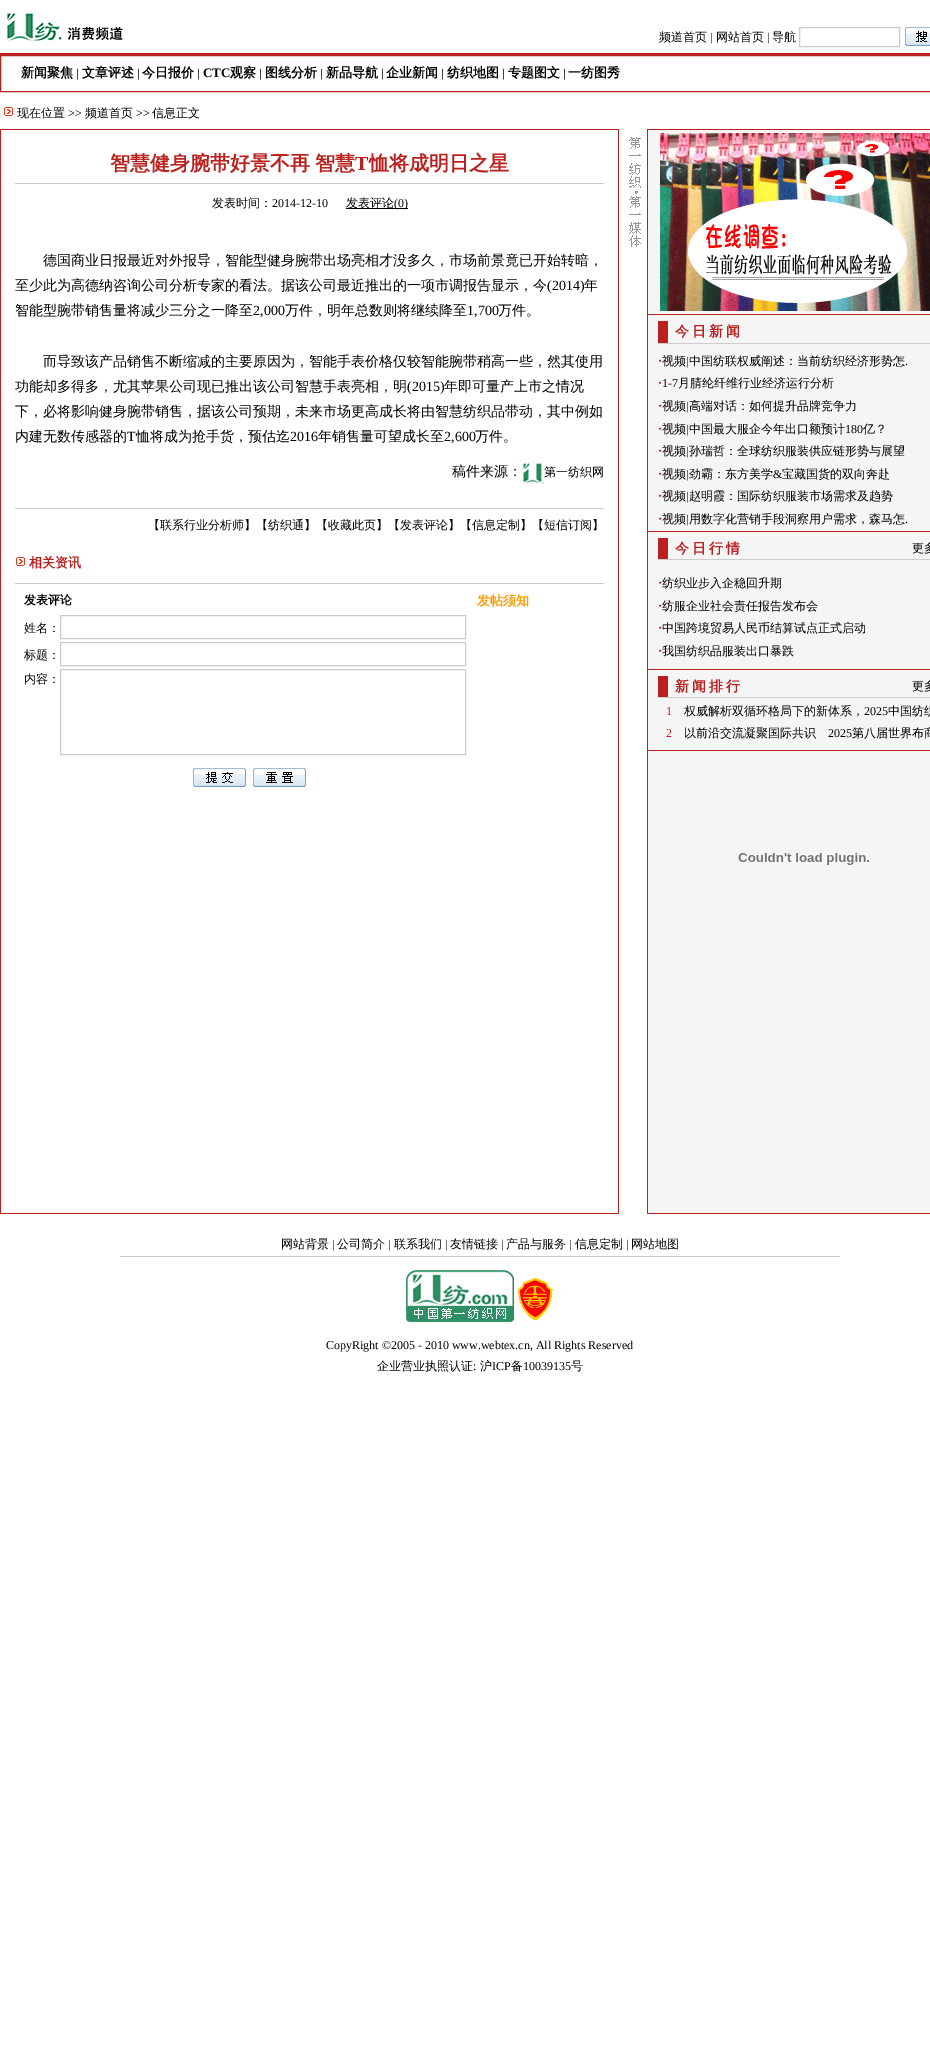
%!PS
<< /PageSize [930 2049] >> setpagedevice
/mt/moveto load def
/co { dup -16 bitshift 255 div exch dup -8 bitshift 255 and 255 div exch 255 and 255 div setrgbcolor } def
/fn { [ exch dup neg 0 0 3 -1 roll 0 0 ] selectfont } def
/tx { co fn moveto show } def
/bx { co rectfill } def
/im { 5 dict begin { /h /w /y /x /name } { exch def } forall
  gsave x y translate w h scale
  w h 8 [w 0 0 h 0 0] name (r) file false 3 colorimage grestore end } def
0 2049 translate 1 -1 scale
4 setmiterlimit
0 0 930 2049 16#FFFFFF bx
(media/1.raw) 6 12 117 29 im
16#CCCCCC co
799.5 27.5 100 19 rectstroke
(media/2.raw) 905 27 25 19 im
0 53 930 2 16#BA201E bx
.5 55.5 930 36 rectstroke
(media/3.raw) 3 106 11 11 im
(media/4.raw) 0 129 930 1084 im
0 129 619 1 16#BA201E bx
15 183 589 1 16#CCCCCC bx
346 208 62 1 16#000000 bx
(media/5.raw) 522 462 22 22 im
15 508 589 1 16#CCCCCC bx
(media/3.raw) 15 556 11 11 im
15 583 589 1 16#CCCCCC bx
60.5 615.5 405 23 rectstroke
60.5 642.5 405 23 rectstroke
60.5 669.5 405 85 rectstroke
(media/6.raw) 191 766 57 22 im
(media/7.raw) 251 766 57 22 im
(media/8.raw) 629 137 12 110 im
648 129 282 1 16#BA201E bx
(media/9.raw) 660 133 270 178 im
648 314 282 1 16#BA201E bx
658 321 10 22 16#BA201E bx
658 343 272 1 16#CCCCCC bx
648 531 282 1 16#BA201E bx
658 538 10 21 16#BA201E bx
658 559 272 1 16#CCCCCC bx
648 669 282 1 16#BA201E bx
658 676 10 21 16#BA201E bx
658 697 272 1 16#CCCCCC bx
648 750 282 1 16#BA201E bx
(media/10.raw) 738 853 131 12 im
(media/11.raw) 0 1213 930 1 im
120 1256 720 1 16#CCCCCC bx
(media/12.raw) 406 1270 108 52 im
(media/13.raw) 518 1278 35 43 im
(频道首页) 659 41 /WenQuanYiZenHei-Medium 12 16#000000 tx
(|) 710 41 /LiberationSerif-Regular 12 16#000000 tx
(网站首页) 716 41 /WenQuanYiZenHei-Medium 12 16#000000 tx
(|) 767 41 /LiberationSerif-Regular 12 16#000000 tx
(导航) 772 41 /WenQuanYiZenHei-Medium 12 16#000000 tx
(新闻聚焦) 21 77 /WenQuanYiZenHei-Bold 13 16#000000 tx
(|) 76 77 /LiberationSerif-Bold 12 16#000000 tx
(文章评述) 82 77 /WenQuanYiZenHei-Bold 13 16#000000 tx
(|) 137 77 /LiberationSerif-Bold 12 16#000000 tx
(今日报价) 142 77 /WenQuanYiZenHei-Bold 13 16#000000 tx
(|) 197 77 /LiberationSerif-Bold 12 16#000000 tx
(CTC) 203 77 /LiberationSerif-Bold 13 16#000000 tx
(观察) 230 77 /WenQuanYiZenHei-Bold 13 16#000000 tx
(|) 259 77 /LiberationSerif-Bold 12 16#000000 tx
(图线分析) 265 77 /WenQuanYiZenHei-Bold 13 16#000000 tx
(|) 320 77 /LiberationSerif-Bold 12 16#000000 tx
(新品导航) 326 77 /WenQuanYiZenHei-Bold 13 16#000000 tx
(|) 381 77 /LiberationSerif-Bold 12 16#000000 tx
(企业新闻) 386 77 /WenQuanYiZenHei-Bold 13 16#000000 tx
(|) 441 77 /LiberationSerif-Bold 12 16#000000 tx
(纺织地图) 447 77 /WenQuanYiZenHei-Bold 13 16#000000 tx
(|) 502 77 /LiberationSerif-Bold 12 16#000000 tx
(专题图文) 508 77 /WenQuanYiZenHei-Bold 13 16#000000 tx
(|) 563 77 /LiberationSerif-Bold 12 16#000000 tx
(一纺图秀) 568 77 /WenQuanYiZenHei-Bold 13 16#000000 tx
(现在位置) 17 117 /WenQuanYiZenHei-Medium 12 16#000000 tx
(>>) 68 117 /LiberationSerif-Regular 12 16#000000 tx
(频道首页) 85 117 /WenQuanYiZenHei-Medium 12 16#000000 tx
(>>) 136 117 /LiberationSerif-Regular 12 16#000000 tx
(信息正文) 152 117 /WenQuanYiZenHei-Medium 12 16#000000 tx
/WenQuanYiZenHei-Bold 20 fn
16#BA201E co
110 170 mt -1 0 32 (智慧健身腕带好景不再 智慧) widthshow
(T) 355 170 /LiberationSerif-Bold 20 16#BA201E tx
(恤将成明日之星) 369 170 /WenQuanYiZenHei-Bold 20 16#BA201E tx
(发表时间：) 212 207 /WenQuanYiZenHei-Medium 12 16#000000 tx
(2014-12-10) 272 207 /LiberationSerif-Regular 12 16#000000 tx
(发表评论) 346 207 /WenQuanYiZenHei-Medium 12 16#000000 tx
(\(0\)) 394 207 /LiberationSerif-Regular 12 16#000000 tx
(德国商业日报最近对外报导，智能型健身腕带出场亮相才没多久，市场前景竟已开始转暗，) 43 265 /WenQuanYiZenHei-Medium 14 16#000000 tx
(至少此为高德纳咨询公司分析专家的看法。据该公司最近推出的一项市调报告显示，今) 15 290 /WenQuanYiZenHei-Medium 14 16#000000 tx
(\(2014\)) 547 290 /LiberationSerif-Regular 14 16#000000 tx
(年) 584 290 /WenQuanYiZenHei-Medium 14 16#000000 tx
(智能型腕带销售量将减少三分之一降至) 15 315 /WenQuanYiZenHei-Medium 14 16#000000 tx
(2,000) 253 315 /LiberationSerif-Regular 14 16#000000 tx
(万件，明年总数则将继续降至) 285 315 /WenQuanYiZenHei-Medium 14 16#000000 tx
(1,700) 467 315 /LiberationSerif-Regular 14 16#000000 tx
(万件。) 498 315 /WenQuanYiZenHei-Medium 14 16#000000 tx
(而导致该产品销售不断缩减的主要原因为，智能手表价格仅较智能腕带稍高一些，然其使用) 43 366 /WenQuanYiZenHei-Medium 14 16#000000 tx
(功能却多得多，尤其苹果公司现已推出该公司智慧手表亮相，明) 15 391 /WenQuanYiZenHei-Medium 14 16#000000 tx
(\(2015\)) 407 391 /LiberationSerif-Regular 14 16#000000 tx
(年即可量产上市之情况) 444 391 /WenQuanYiZenHei-Medium 14 16#000000 tx
(下，必将影响健身腕带销售，据该公司预期，未来市场更高成长将由智慧纺织品带动，其中例如) 15 416 /WenQuanYiZenHei-Medium 14 16#000000 tx
(内建无数传感器的) 15 441 /WenQuanYiZenHei-Medium 14 16#000000 tx
(T) 127 441 /LiberationSerif-Regular 14 16#000000 tx
(恤将成为抢手货，预估迄) 136 441 /WenQuanYiZenHei-Medium 14 16#000000 tx
(2016) 290 441 /LiberationSerif-Regular 14 16#000000 tx
(年销售量可望成长至) 318 441 /WenQuanYiZenHei-Medium 14 16#000000 tx
(2,600) 444 441 /LiberationSerif-Regular 14 16#000000 tx
(万件。) 475 441 /WenQuanYiZenHei-Medium 14 16#000000 tx
(稿件来源：) 452 476 /WenQuanYiZenHei-Medium 14 16#000000 tx
(第一纺织网) 544 476 /WenQuanYiZenHei-Medium 12 16#000000 tx
(【联系行业分析师】) 148 529 /WenQuanYiZenHei-Medium 12 16#000000 tx
(【纺织通】) 256 529 /WenQuanYiZenHei-Medium 12 16#000000 tx
(【收藏此页】) 316 529 /WenQuanYiZenHei-Medium 12 16#000000 tx
(【发表评论】) 388 529 /WenQuanYiZenHei-Medium 12 16#000000 tx
(【信息定制】) 460 529 /WenQuanYiZenHei-Medium 12 16#000000 tx
(【短信订阅】) 532 529 /WenQuanYiZenHei-Medium 12 16#000000 tx
(相关资讯) 29 567 /WenQuanYiZenHei-Bold 13 16#BA201E tx
(发表评论) 24 604 /WenQuanYiZenHei-Bold 12 16#000000 tx
(姓名：) 24 632 /WenQuanYiZenHei-Medium 12 16#000000 tx
(标题：) 24 659 /WenQuanYiZenHei-Medium 12 16#000000 tx
(内容：) 24 683 /WenQuanYiZenHei-Medium 12 16#000000 tx
(发帖须知) 477 605 /WenQuanYiZenHei-Bold 13 16#FF9900 tx
/WenQuanYiZenHei-Bold 14 fn
16#BA201E co
675 336 mt 3 0 (今日新闻) ashow
(·) 658 365 /LiberationSerif-Bold 13 16#BA201E tx
(视频) 662 365 /WenQuanYiZenHei-Medium 12 16#000000 tx
(|) 686 365 /LiberationSerif-Regular 12 16#000000 tx
(中国纺联权威阐述：当前纺织经济形势怎) 689 365 /WenQuanYiZenHei-Medium 12 16#000000 tx
(.) 905 365 /LiberationSerif-Regular 12 16#000000 tx
(·) 658 387 /LiberationSerif-Bold 13 16#BA201E tx
(1-7) 662 387 /LiberationSerif-Regular 12 16#000000 tx
(月腈纶纤维行业经济运行分析) 678 387 /WenQuanYiZenHei-Medium 12 16#000000 tx
(·) 658 410 /LiberationSerif-Bold 13 16#BA201E tx
(视频) 662 410 /WenQuanYiZenHei-Medium 12 16#000000 tx
(|) 686 410 /LiberationSerif-Regular 12 16#000000 tx
(高端对话：如何提升品牌竞争力) 689 410 /WenQuanYiZenHei-Medium 12 16#000000 tx
(·) 658 433 /LiberationSerif-Bold 13 16#BA201E tx
(视频) 662 433 /WenQuanYiZenHei-Medium 12 16#000000 tx
(|) 686 433 /LiberationSerif-Regular 12 16#000000 tx
(中国最大服企今年出口额预计) 689 433 /WenQuanYiZenHei-Medium 12 16#000000 tx
(180) 845 433 /LiberationSerif-Regular 12 16#000000 tx
(亿？) 863 433 /WenQuanYiZenHei-Medium 12 16#000000 tx
(·) 658 455 /LiberationSerif-Bold 13 16#BA201E tx
(视频) 662 455 /WenQuanYiZenHei-Medium 12 16#000000 tx
(|) 686 455 /LiberationSerif-Regular 12 16#000000 tx
(孙瑞哲：全球纺织服装供应链形势与展望) 689 455 /WenQuanYiZenHei-Medium 12 16#000000 tx
(·) 658 478 /LiberationSerif-Bold 13 16#BA201E tx
(视频) 662 478 /WenQuanYiZenHei-Medium 12 16#000000 tx
(|) 686 478 /LiberationSerif-Regular 12 16#000000 tx
(劲霸：东方美学) 689 478 /WenQuanYiZenHei-Medium 12 16#000000 tx
(&) 773 478 /LiberationSerif-Regular 12 16#000000 tx
(宝藏国货的双向奔赴) 782 478 /WenQuanYiZenHei-Medium 12 16#000000 tx
(·) 658 500 /LiberationSerif-Bold 13 16#BA201E tx
(视频) 662 500 /WenQuanYiZenHei-Medium 12 16#000000 tx
(|) 686 500 /LiberationSerif-Regular 12 16#000000 tx
(赵明霞：国际纺织服装市场需求及趋势) 689 500 /WenQuanYiZenHei-Medium 12 16#000000 tx
(·) 658 523 /LiberationSerif-Bold 13 16#BA201E tx
(视频) 662 523 /WenQuanYiZenHei-Medium 12 16#000000 tx
(|) 686 523 /LiberationSerif-Regular 12 16#000000 tx
(用数字化营销手段洞察用户需求，森马怎) 689 523 /WenQuanYiZenHei-Medium 12 16#000000 tx
(.) 905 523 /LiberationSerif-Regular 12 16#000000 tx
/WenQuanYiZenHei-Bold 14 fn
16#BA201E co
675 553 mt 3 0 (今日行情) ashow
(更多) 912 552 /WenQuanYiZenHei-Medium 12 16#000000 tx
(·) 658 587 /LiberationSerif-Bold 13 16#BA201E tx
(纺织业步入企稳回升期) 662 587 /WenQuanYiZenHei-Medium 12 16#000000 tx
(·) 658 610 /LiberationSerif-Bold 13 16#BA201E tx
(纺服企业社会责任报告发布会) 662 610 /WenQuanYiZenHei-Medium 12 16#000000 tx
(·) 658 632 /LiberationSerif-Bold 13 16#BA201E tx
(中国跨境贸易人民币结算试点正式启动) 662 632 /WenQuanYiZenHei-Medium 12 16#000000 tx
(·) 658 655 /LiberationSerif-Bold 13 16#BA201E tx
(我国纺织品服装出口暴跌) 662 655 /WenQuanYiZenHei-Medium 12 16#000000 tx
/WenQuanYiZenHei-Bold 14 fn
16#BA201E co
675 691 mt 3 0 (新闻排行) ashow
(更多) 912 690 /WenQuanYiZenHei-Medium 12 16#000000 tx
(1) 666 715 /LiberationSerif-Regular 12 16#BA201E tx
(权威解析双循环格局下的新体系，) 684 715 /WenQuanYiZenHei-Medium 12 16#000000 tx
(2025) 864 715 /LiberationSerif-Regular 12 16#000000 tx
(中国纺织) 888 715 /WenQuanYiZenHei-Medium 12 16#000000 tx
(2) 666 737 /LiberationSerif-Regular 12 16#BA201E tx
(以前沿交流凝聚国际共识) 684 737 /WenQuanYiZenHei-Medium 12 16#000000 tx
(2025) 828 737 /LiberationSerif-Regular 12 16#000000 tx
(第八届世界布商) 852 737 /WenQuanYiZenHei-Medium 12 16#000000 tx
(网站背景) 281 1248 /WenQuanYiZenHei-Medium 12 16#000000 tx
(|) 332 1248 /LiberationSerif-Regular 12 16#000000 tx
(公司简介) 337 1248 /WenQuanYiZenHei-Medium 12 16#000000 tx
(|) 388 1248 /LiberationSerif-Regular 12 16#000000 tx
(联系我们) 394 1248 /WenQuanYiZenHei-Medium 12 16#000000 tx
(|) 445 1248 /LiberationSerif-Regular 12 16#000000 tx
(友情链接) 450 1248 /WenQuanYiZenHei-Medium 12 16#000000 tx
(|) 501 1248 /LiberationSerif-Regular 12 16#000000 tx
(产品与服务) 506 1248 /WenQuanYiZenHei-Medium 12 16#000000 tx
(|) 569 1248 /LiberationSerif-Regular 12 16#000000 tx
(信息定制) 575 1248 /WenQuanYiZenHei-Medium 12 16#000000 tx
(|) 626 1248 /LiberationSerif-Regular 12 16#000000 tx
(网站地图) 631 1248 /WenQuanYiZenHei-Medium 12 16#000000 tx
(CopyRight ©2005 - 2010 www.webtex.cn, All Rights Reserved) 326 1349 /LiberationSerif-Regular 12 16#000000 tx
(企业营业执照认证) 377 1370 /WenQuanYiZenHei-Medium 12 16#000000 tx
(:) 473 1370 /LiberationSerif-Regular 12 16#000000 tx
(沪) 480 1370 /WenQuanYiZenHei-Medium 12 16#000000 tx
(ICP) 492 1370 /LiberationSerif-Regular 12 16#000000 tx
(备) 511 1370 /WenQuanYiZenHei-Medium 12 16#000000 tx
(10039135) 523 1370 /LiberationSerif-Regular 12 16#000000 tx
(号) 571 1370 /WenQuanYiZenHei-Medium 12 16#000000 tx
showpage
